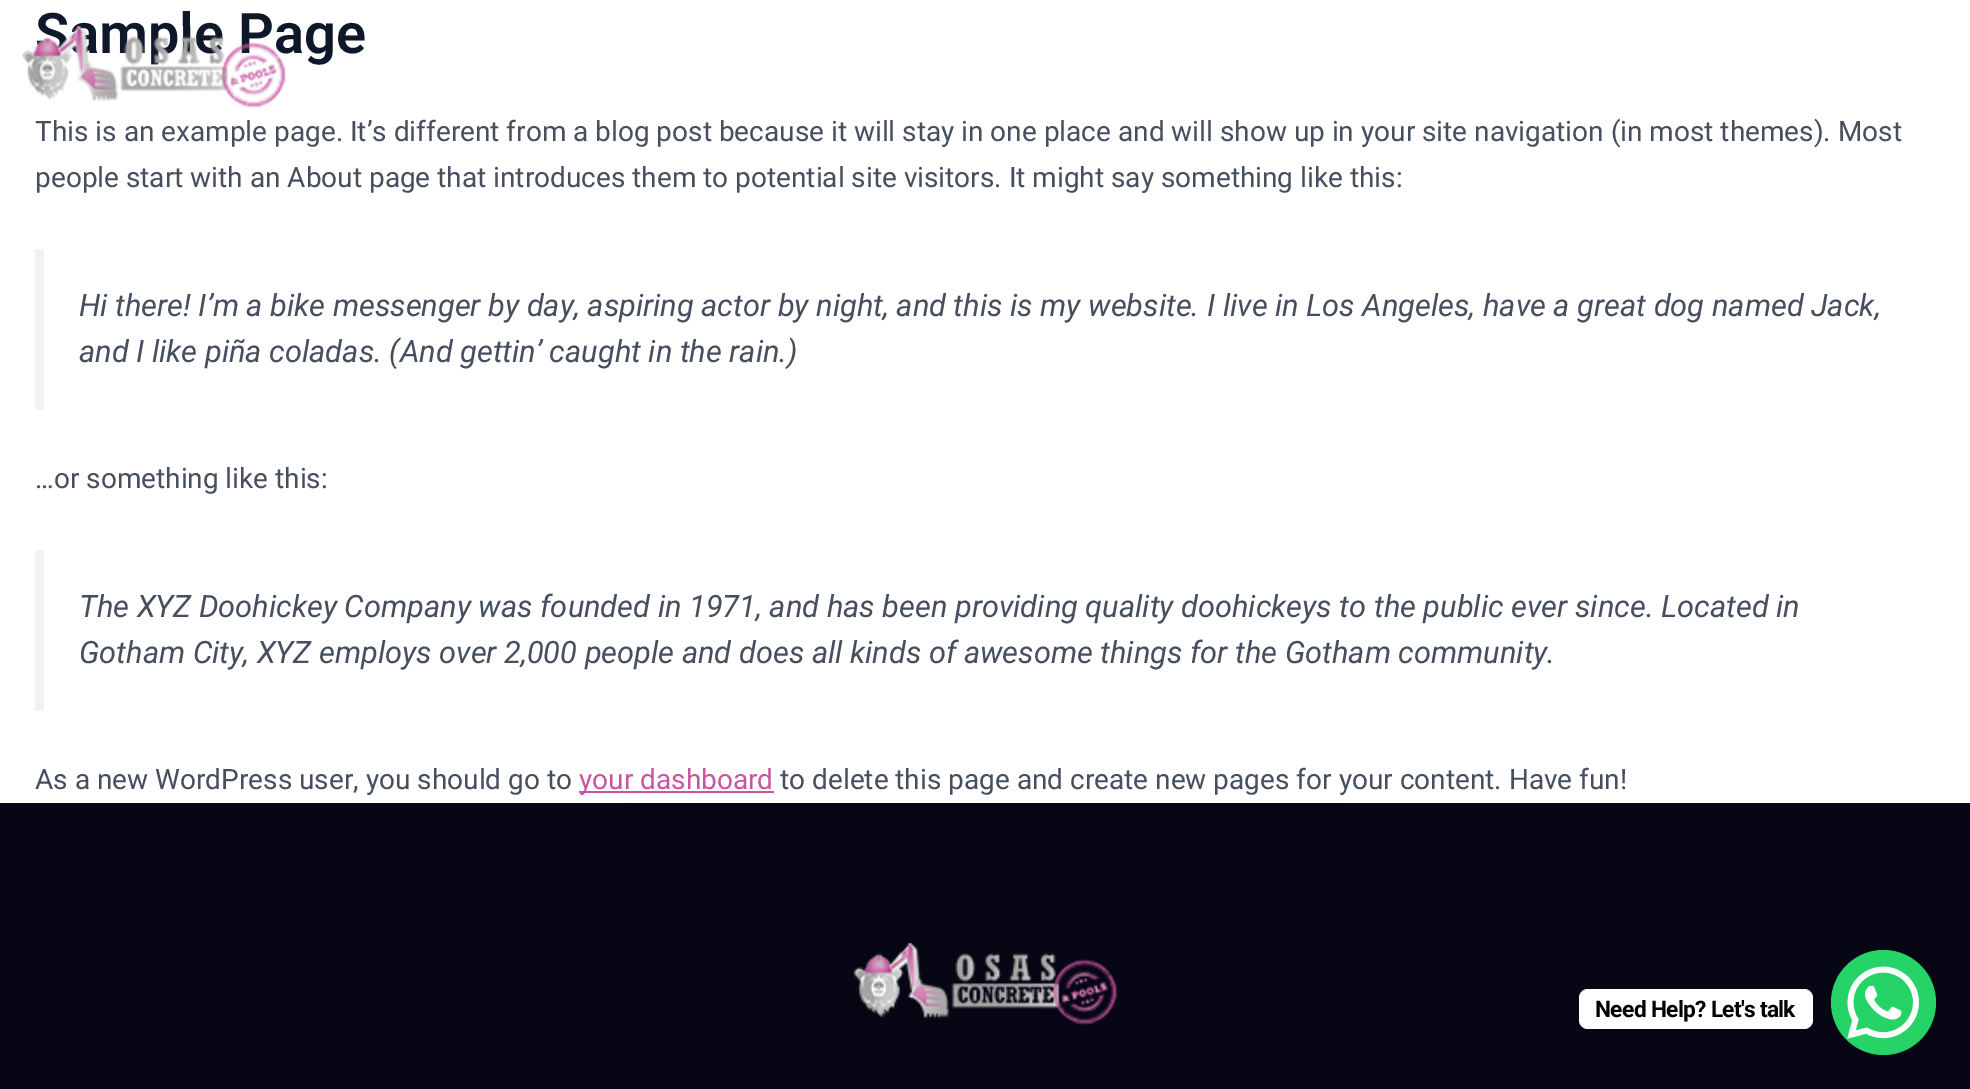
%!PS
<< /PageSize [1970 1089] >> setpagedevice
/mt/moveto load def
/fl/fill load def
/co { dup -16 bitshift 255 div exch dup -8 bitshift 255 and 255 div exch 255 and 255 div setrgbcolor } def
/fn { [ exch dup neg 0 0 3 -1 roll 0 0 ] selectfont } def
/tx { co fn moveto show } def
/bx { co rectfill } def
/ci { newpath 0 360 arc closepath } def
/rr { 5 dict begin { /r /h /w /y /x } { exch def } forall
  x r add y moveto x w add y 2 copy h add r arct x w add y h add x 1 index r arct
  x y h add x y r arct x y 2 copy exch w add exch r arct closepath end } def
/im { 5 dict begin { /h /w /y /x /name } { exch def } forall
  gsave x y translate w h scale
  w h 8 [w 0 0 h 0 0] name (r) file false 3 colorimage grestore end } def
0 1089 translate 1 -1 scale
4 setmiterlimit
0 0 1970 1089 16#FFFFFF bx
35 249 9 161 16#F2F2F2 bx
35 550 9 161 16#F2F2F2 bx
579 791 195 2 16#CA549E bx
(media/2.raw) 0 803 1970 286 im
(media/3.raw) 854 943 263 82 im
16#FFFFFF co
1579 989 234 40 9 rr fl
16#25D366 co
1883.5 1002.5 52.5 ci fl
(media/4.raw) 1847 966 72 73 im
(Sample Page) 35 53 /Roboto-SemiBold 56 16#0F172A tx
(This is an example page. It’s different from a blog post because it will stay in one place and will show up in your site navigation \(in most themes\). Most) 35 141 /Roboto-Regular 28 16#454F5E tx
(people start with an About page that introduces them to potential site visitors. It might say something like this:) 35 187 /Roboto-Regular 28 16#454F5E tx
(Hi there! I’m a bike messenger by day, aspiring actor by night, and this is my website. I live in Los Angeles, have a great dog named Jack,) 79 316 /Roboto-Italic 30.8 16#454F5E tx
(and I like piña coladas. \(And gettin’ caught in the rain.\)) 79 362 /Roboto-Italic 30.8 16#454F5E tx
(…or something like this:) 35 488 /Roboto-Regular 28 16#454F5E tx
(The XYZ Doohickey Company was founded in 1971, and has been providing quality doohickeys to the public ever since. Located in) 79 617 /Roboto-Italic 30.8 16#454F5E tx
(Gotham City, XYZ employs over 2,000 people and does all kinds of awesome things for the Gotham community.) 79 663 /Roboto-Italic 30.8 16#454F5E tx
(As a new WordPress user, you should go to) 35 789 /Roboto-Regular 28 16#454F5E tx
(your dashboard) 579 789 /Roboto-Regular 28 16#CA549E tx
(to delete this page and create new pages for your content. Have fun!) 780 789 /Roboto-Regular 28 16#454F5E tx
(media/1.raw) 22 26 264 82 im
/Roboto-Bold 22.75 fn
16#000000 co
1595 1017 mt -.7 0 (Need Help? Let's talk) ashow
showpage
